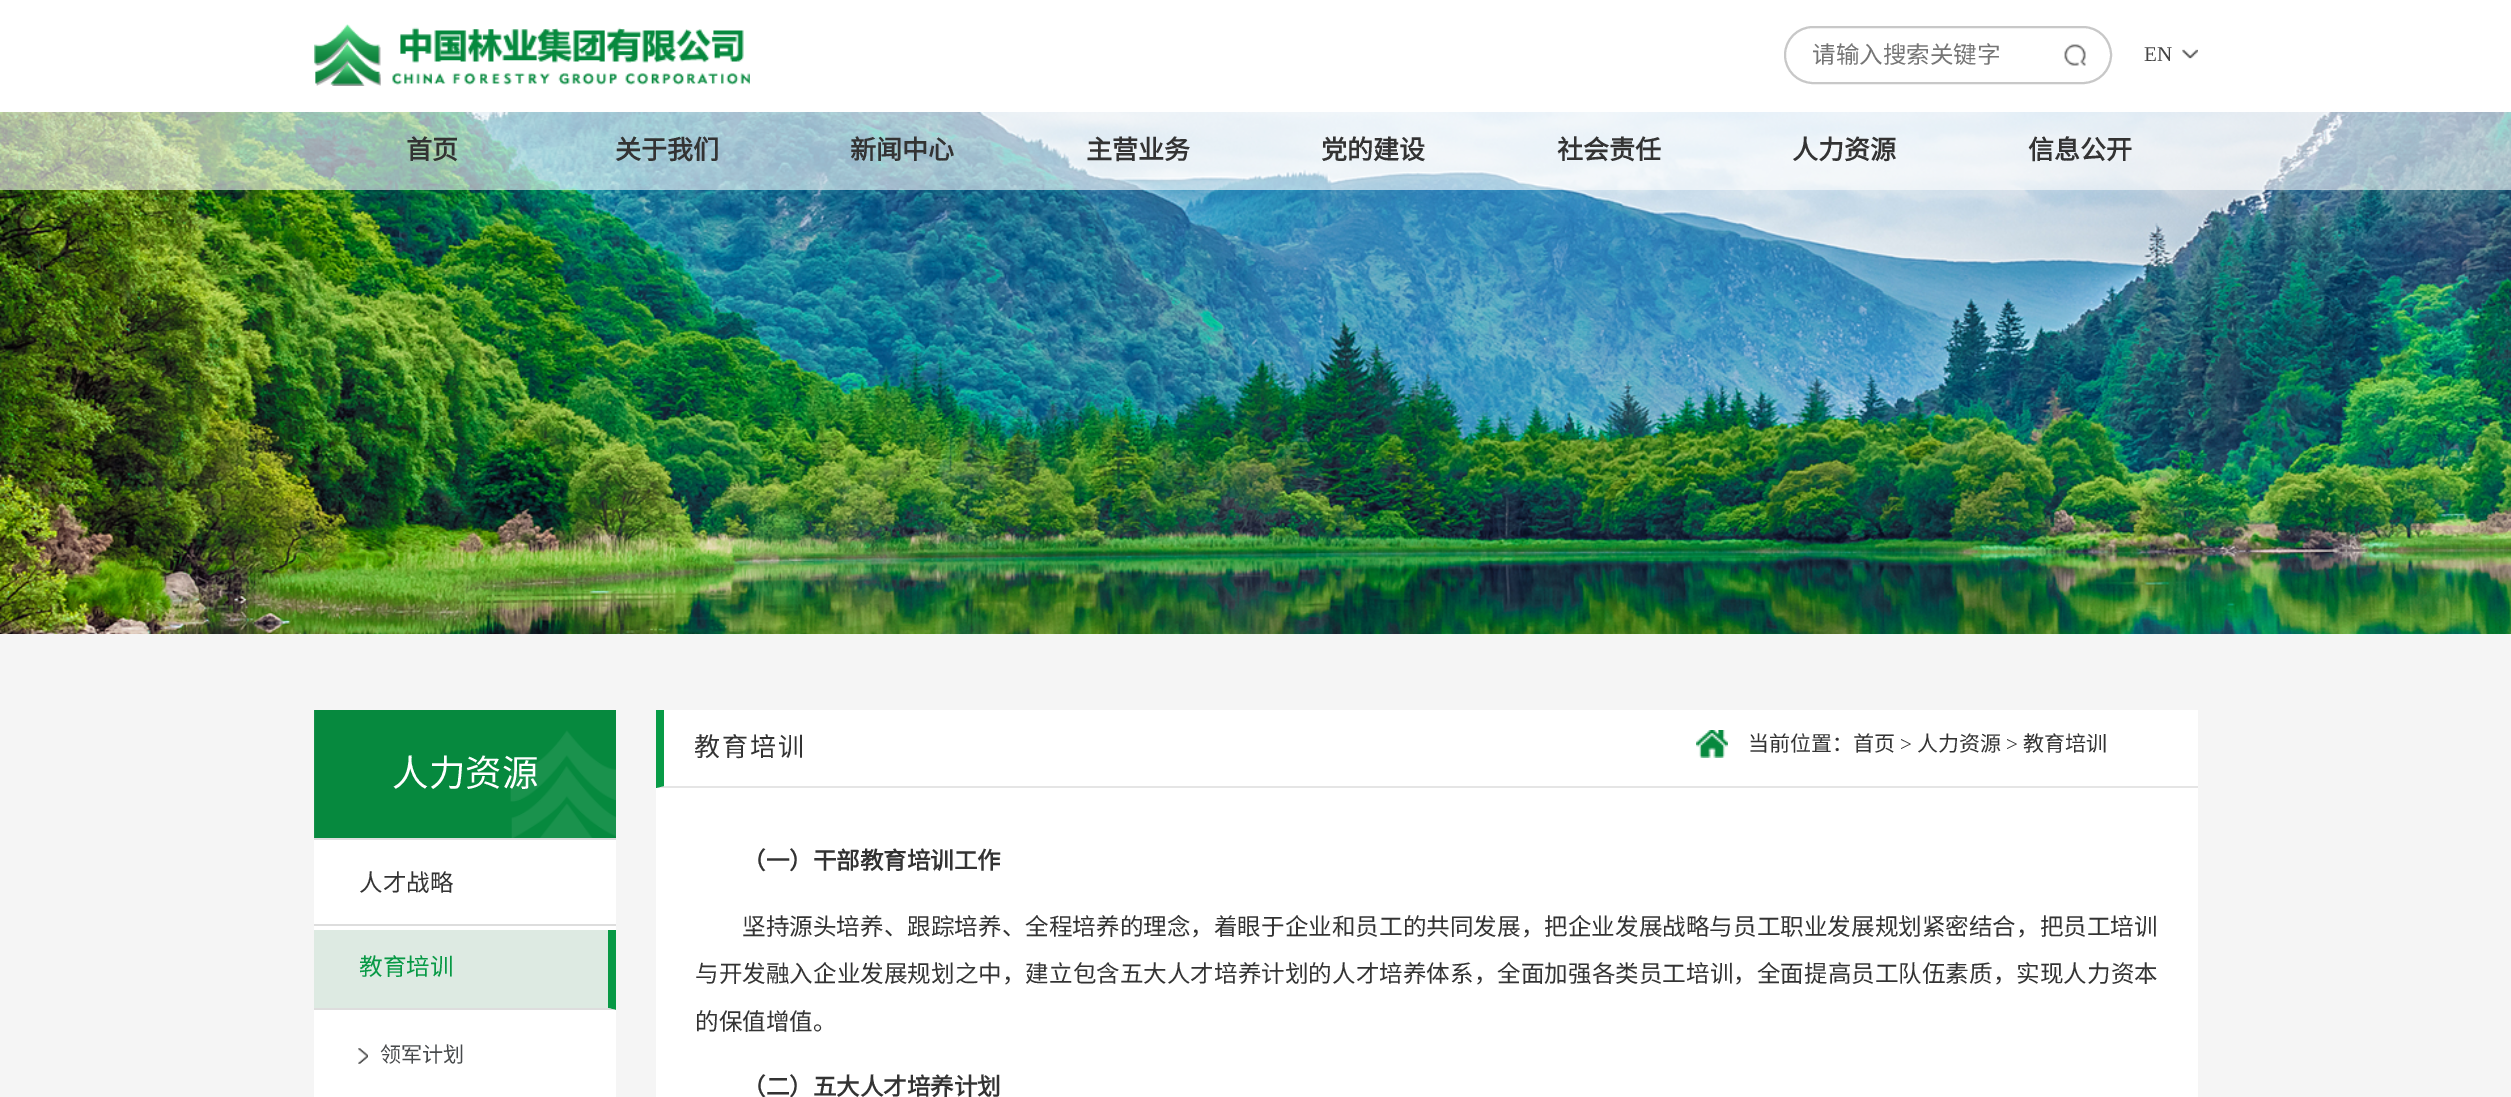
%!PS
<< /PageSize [2511 1097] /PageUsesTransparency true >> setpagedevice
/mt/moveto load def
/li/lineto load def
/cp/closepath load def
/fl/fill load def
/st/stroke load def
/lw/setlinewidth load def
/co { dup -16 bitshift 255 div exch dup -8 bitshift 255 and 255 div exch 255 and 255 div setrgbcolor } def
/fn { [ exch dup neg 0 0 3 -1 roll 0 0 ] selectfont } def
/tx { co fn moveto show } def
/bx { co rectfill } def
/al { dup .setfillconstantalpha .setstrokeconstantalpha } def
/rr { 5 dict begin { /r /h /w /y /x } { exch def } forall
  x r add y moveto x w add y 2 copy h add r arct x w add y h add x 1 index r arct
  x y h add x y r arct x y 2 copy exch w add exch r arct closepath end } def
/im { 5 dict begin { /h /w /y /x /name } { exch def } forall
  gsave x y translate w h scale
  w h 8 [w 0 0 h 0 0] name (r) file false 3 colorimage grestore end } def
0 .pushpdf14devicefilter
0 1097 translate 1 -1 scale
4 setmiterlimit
0 0 2511 1097 16#F5F5F5 bx
0 0 2511 112 16#FFFFFF bx
(media/1.raw) 314 24 436 62 im
16#C8C8C8 co
2 lw
1785 27 326 56 28 rr st
(media/2.raw) 2064 44 22 22 im
(media/3.raw) 2182 49 16 10 im
(media/4.raw) 0 112 2511 522 im
0.6 al
0 112 2511 78 16#FFFFFF bx
1 al
314 710 302 387 16#FFFFFF bx
(media/5.raw) 314 710 302 128 im
314 838 302 2 16#DDDDDD bx
314 924 302 2 16#DDDDDD bx
314 930 302 80 16#DDEAE2 bx
16#079945 co
616 930 mt 616 1010 li 608 1008 li 608 930 li cp fl
16#DDDDDD co
616 1010 mt 314 1010 li 314 1008 li 608 1008 li cp fl
(media/6.raw) 358 1048 10 16 im
656 710 1542 387 16#FFFFFF bx
16#E5E5E5 co
2198 788 mt 656 788 li 664 786 li 2198 786 li cp fl
16#079B46 co
656 788 mt 656 710 li 664 710 li 664 786 li cp fl
(media/7.raw) 1696 730 32 28 im
(请输入搜索关键字) 1812 63 /NotoSansCJKSC-Regular 23.55 16#757575 tx
(EN) 2144 61 /LiberationSerif-Regular 21 16#444444 tx
(首页) 406 159 /NotoSansCJKSC-Bold 26 16#333333 tx
(关于我们) 615 159 /NotoSansCJKSC-Bold 26 16#333333 tx
(新闻中心) 850 159 /NotoSansCJKSC-Bold 26 16#333333 tx
(主营业务) 1086 159 /NotoSansCJKSC-Bold 26 16#333333 tx
(党的建设) 1321 159 /NotoSansCJKSC-Bold 26 16#333333 tx
(社会责任) 1557 159 /NotoSansCJKSC-Bold 26 16#333333 tx
(人力资源) 1792 159 /NotoSansCJKSC-Bold 26 16#333333 tx
(信息公开) 2028 159 /NotoSansCJKSC-Bold 26 16#333333 tx
(人力资源) 392 786 /NotoSansCJKSC-Regular 36.5 16#FFFFFF tx
(人才战略) 359 891 /NotoSansCJKSC-Regular 23.55 16#333333 tx
(教育培训) 359 975 /NotoSansCJKSC-Regular 23.55 16#079945 tx
(领军计划) 380 1062 /NotoSansCJKSC-Regular 21 16#46494B tx
/NotoSansCJKSC-Regular 26 fn
16#333333 co
694 756 mt 2 0 (教育培训) ashow
(（一）干部教育培训工作) 742 869 /NotoSansCJKSC-Bold 23.55 16#333333 tx
/NotoSansCJKSC-Regular 23.55 fn
742 935 mt .05 0 (坚持源头培养、跟踪培养、全程培养的理念，着眼于企业和员工的共同发展，把企业发展战略与员工职业发展规划紧密结合，把员工培训) ashow
695 982 mt .05 0 (与开发融入企业发展规划之中，建立包含五大人才培养计划的人才培养体系，全面加强各类员工培训，全面提高员工队伍素质，实现人力资本) ashow
(的保值增值。) 695 1030 /NotoSansCJKSC-Regular 23.55 16#333333 tx
(（二）五大人才培养计划) 742 1095 /NotoSansCJKSC-Bold 23.55 16#333333 tx
(当前位置：首页) 1748 751 /NotoSansCJKSC-Regular 21 16#333333 tx
(>) 1900 751 /LiberationSerif-Regular 21 16#333333 tx
(人力资源) 1917 751 /NotoSansCJKSC-Regular 21 16#333333 tx
(>) 2006 751 /LiberationSerif-Regular 21 16#333333 tx
(教育培训) 2023 751 /NotoSansCJKSC-Regular 21 16#333333 tx
.poppdf14devicefilter showpage
